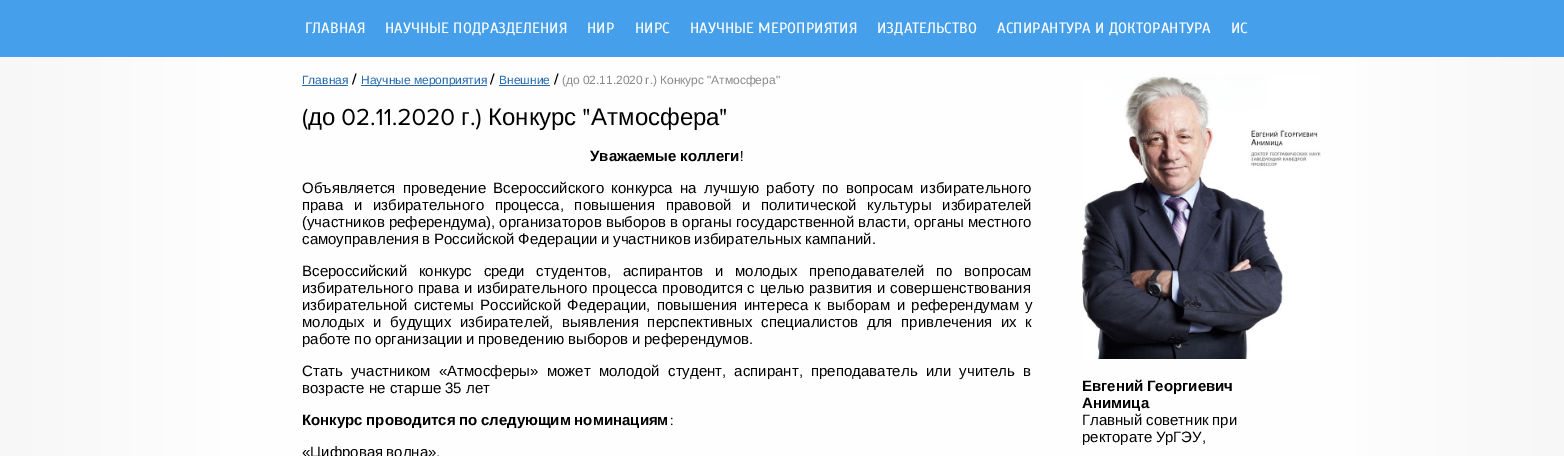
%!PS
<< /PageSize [1564 456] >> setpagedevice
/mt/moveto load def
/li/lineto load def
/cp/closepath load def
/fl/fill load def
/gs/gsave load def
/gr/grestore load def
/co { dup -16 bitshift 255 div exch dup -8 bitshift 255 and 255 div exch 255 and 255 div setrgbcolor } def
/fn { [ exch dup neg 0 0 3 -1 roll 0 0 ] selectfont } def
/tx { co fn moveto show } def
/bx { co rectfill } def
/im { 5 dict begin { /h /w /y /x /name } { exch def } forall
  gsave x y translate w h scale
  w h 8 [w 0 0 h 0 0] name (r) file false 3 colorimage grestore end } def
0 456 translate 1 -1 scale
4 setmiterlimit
0 0 1564 456 16#FFFFFF bx
gs 0 57 mt 1564 57 li 1564 456 li 0 456 li cp clip newpath
<< /ShadingType 2 /ColorSpace /DeviceRGB /Coords [0 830 1564 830] /Extend [true true] /Function << /FunctionType 3 /Domain [0 1] /Functions [<< /FunctionType 2 /Domain [0 1] /C0 [.969 .969 .969] /C1 [.996 .996 .996] /N 1 >> << /FunctionType 2 /Domain [0 1] /C0 [.996 .996 .996] /C1 [.996 .996 .996] /N 1 >> << /FunctionType 2 /Domain [0 1] /C0 [.996 .996 .996] /C1 [.969 .969 .969] /N 1 >>] /Bounds [.15 .86] /Encode [0 1 0 1 0 1] >> >> shfill gr
0 0 1564 57 16#459FEB bx
302 85 46 1 16#256BAD bx
16#000000 co
353 84.5 mt 352 84.5 li 355.5 73.5 li 356.5 73.5 li cp fl
361 85 126 1 16#256BAD bx
16#000000 co
491 84.5 mt 490 84.5 li 493.5 73.5 li 494.5 73.5 li cp fl
499 85 51 1 16#256BAD bx
16#000000 co
555 84.5 mt 554 84.5 li 557.5 73.5 li 558.5 73.5 li cp fl
(media/1.raw) 303 108 5 22 im
(media/2.raw) 342 108 112 18 im
(media/3.raw) 471 108 10 22 im
(media/4.raw) 583 108 7 8 im
(media/5.raw) 720 108 6 8 im
(media/6.raw) 740 151 3 11 im
(media/7.raw) 670 417 3 9 im
(media/8.raw) 1082 76 239 283 im
(ГЛАВНАЯ) 305 33 /Scada-Regular 15 16#FFFFFF tx
(НАУЧНЫЕ ПОДРАЗДЕЛЕНИЯ) 385 33 /Scada-Regular 15 16#FFFFFF tx
(НИР) 587 33 /Scada-Regular 15 16#FFFFFF tx
(НИРС) 635 33 /Scada-Regular 15 16#FFFFFF tx
(НАУЧНЫЕ МЕРОПРИЯТИЯ) 690 33 /Scada-Regular 15 16#FFFFFF tx
(ИЗДАТЕЛЬСТВО) 877 33 /Scada-Regular 15 16#FFFFFF tx
(АСПИРАНТУРА И ДОКТОРАНТУРА) 997 33 /Scada-Regular 15 16#FFFFFF tx
(ИС) 1231 33 /Scada-Regular 15 16#FFFFFF tx
(Главная) 302 84 /LiberationSans-Regular 12 16#256BAD tx
(Научные мероприятия) 361 84 /LiberationSans-Regular 12 16#256BAD tx
(Внешние) 499 84 /LiberationSans-Regular 12 16#256BAD tx
16#898989 co
562 84 mt -.5 0 32 (\(до 02.11.2020 г.\) Конкурс "Атмосфера") widthshow
(до) 308 125 /LiberationSans-Regular 24 16#000000 tx
(г) 461 125 /LiberationSans-Regular 24 16#000000 tx
(Конкурс) 488 125 /LiberationSans-Regular 24 16#000000 tx
(Атмосфера) 591 125 /LiberationSans-Regular 24 16#000000 tx
/LiberationSans-Bold 15 fn
590 161 mt -.5 0 32 (Уважаемые коллеги) widthshow
/LiberationSans-Regular 15 fn
302 193 mt 3.25 0 32 (Объявляется проведение Всероссийского конкурса на лучшую работу по вопросам избирательного) widthshow
302 210 mt 6.5 0 32 (права и избирательного процесса, повышения правовой и политической культуры избирателей) widthshow
(\(участников референдума\), организаторов выборов в органы государственной власти, органы местного) 302 227 /LiberationSans-Regular 15 16#000000 tx
302 244 mt -.5 0 32 (самоуправления в Российской Федерации и участников избирательных кампаний.) widthshow
302 276 mt 7.5 0 32 (Всероссийский конкурс среди студентов, аспирантов и молодых преподавателей по вопросам) widthshow
302 293 mt .5 0 32 (избирательного права и избирательного процесса проводится с целью развития и совершенствования) widthshow
302 310 mt 2.25 0 32 (избирательной системы Российской Федерации, повышения интереса к выборам и референдумам у) widthshow
302 327 mt 4.5 0 32 (молодых и будущих избирателей, выявления перспективных специалистов для привлечения их к) widthshow
302 344 mt -.5 0 32 (работе по организации и проведению выборов и референдумов.) widthshow
302 376 mt 4 0 32 (Стать участником «Атмосферы» может молодой студент, аспирант, преподаватель или учитель в) widthshow
(возрасте не старше 35 лет) 302 393 /LiberationSans-Regular 15 16#000000 tx
/LiberationSans-Bold 15 fn
302 425 mt -.5 0 32 (Конкурс проводится по следующим номинациям) widthshow
/LiberationSans-Regular 15 fn
302 457 mt -1 0 32 («Цифровая волна»,) widthshow
/LiberationSans-Bold 15 fn
1082 391 mt -.5 0 32 (Евгений Георгиевич) widthshow
(Анимица) 1082 408 /LiberationSans-Bold 15 16#000000 tx
/LiberationSans-Regular 15 fn
1082 425 mt -.5 0 32 (Главный советник при) widthshow
1082 442 mt -1 0 32 (ректорате УрГЭУ,) widthshow
showpage
